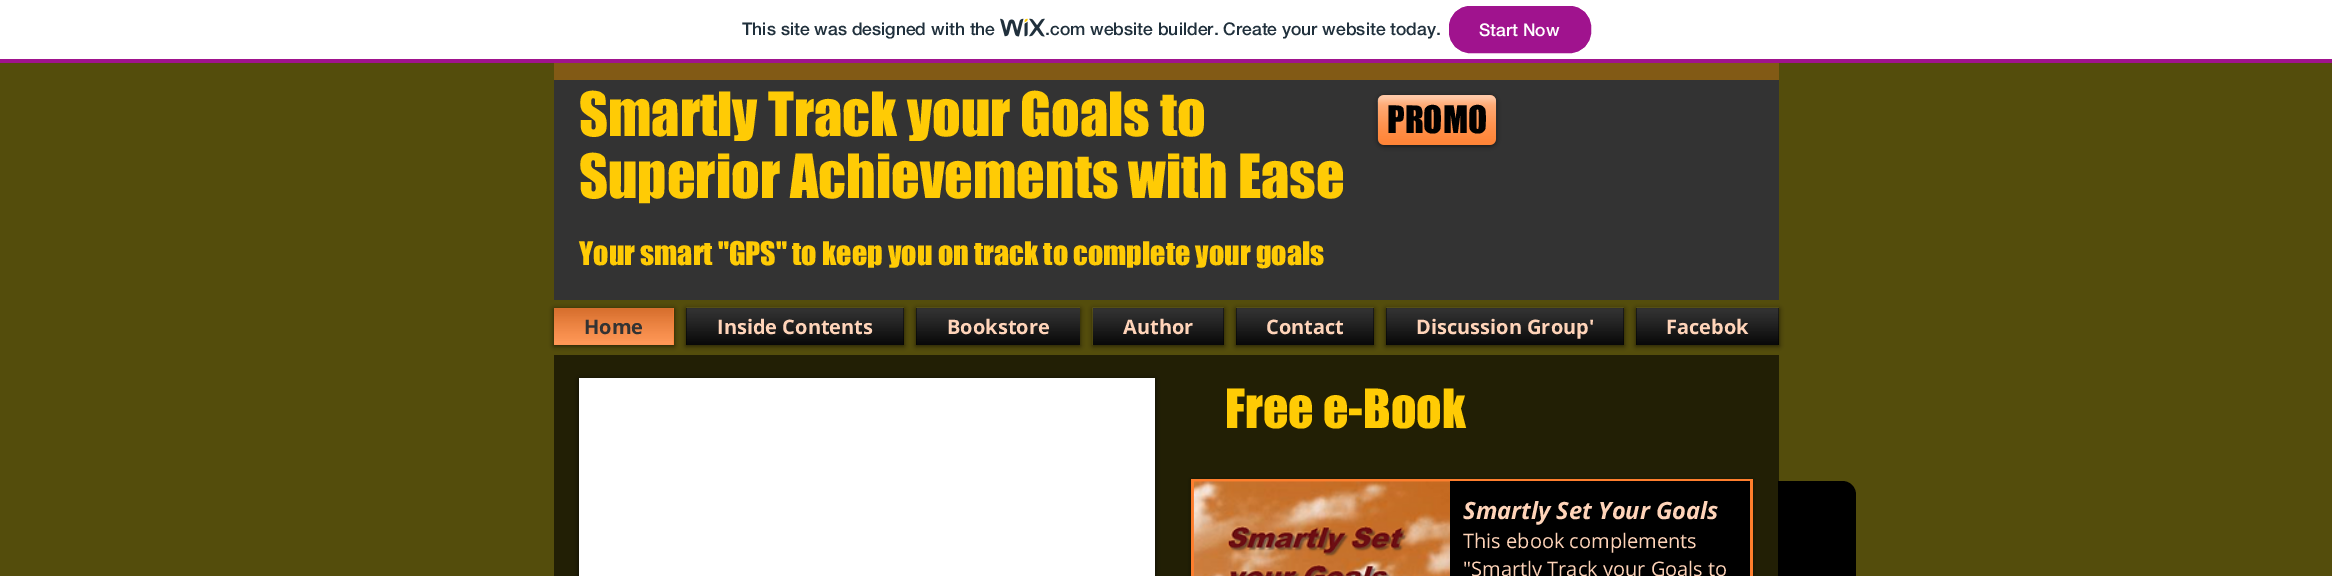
%!PS
<< /PageSize [2332 576] /PageUsesTransparency true >> setpagedevice
/mt/moveto load def
/li/lineto load def
/ct/curveto load def
/cp/closepath load def
/fl/fill load def
/st/stroke load def
/gs/gsave load def
/gr/grestore load def
/co { dup -16 bitshift 255 div exch dup -8 bitshift 255 and 255 div exch 255 and 255 div setrgbcolor } def
/fn { [ exch dup neg 0 0 3 -1 roll 0 0 ] selectfont } def
/tx { co fn moveto show } def
/bx { co rectfill } def
/al { dup .setfillconstantalpha .setstrokeconstantalpha } def
/rr { 5 dict begin { /r /h /w /y /x } { exch def } forall
  x r add y moveto x w add y 2 copy h add r arct x w add y h add x 1 index r arct
  x y h add x y r arct x y 2 copy exch w add exch r arct closepath end } def
/sh { 12 dict begin { /a /b /q /h /w /y /x } { exch def } forall gsave /was 0 def
  9 -2 -9 { dup b mul 4 div /e exch def 1 sub .425 mul 2.718 exch exp 1 add a .99 .min exch div /now exch def
    1 1 now sub 1 was sub div sub al /was now def
    w h .min e 2 mul add 0 gt { x e sub y e sub w e 2 mul add h e 2 mul add
      q e add b .6 mul add w h .min 2 div e add .min 0 .max rr fill } if } for grestore end } def
/im { 5 dict begin { /h /w /y /x /name } { exch def } forall
  gsave x y translate w h scale
  w h 8 [w 0 0 h 0 0] name (r) file false 3 colorimage grestore end } def
0 .pushpdf14devicefilter
0 576 translate 1 -1 scale
4 setmiterlimit
0 0 2332 576 16#FFFFFF bx
0 59 2332 4 16#A0138E bx
(media/1.raw) 1000 18 45 19 im
1449.5 6.5 141 46 20.5 rr gs fl gr
st
0 63 2332 513 16#544D0C bx
554 63 1225 17 16#825A15 bx
554 80 1225 220 16#333333 bx
16#000000 co
1378 96 118 50 6 2.5 .6 sh
16#FF7E2D co
1378 95 118 50 6 rr fl
(media/2.raw) 1377 95 120 50 im
16#000000 co
554 309 120 37 0 2.5 .6 sh
554 308 120 37 16#FF7E2D bx
(media/3.raw) 554 308 120 31 im
(media/4.raw) 554 308 120 37 im
16#000000 co
686 309 218 37 0 2.5 .6 sh
686 308 218 37 16#000000 bx
(media/5.raw) 686 307 218 38 im
916 309 164 37 0 2.5 .6 sh
916 308 164 37 16#000000 bx
(media/6.raw) 916 307 164 38 im
1093 309 131 37 0 2.5 .6 sh
1093 308 131 37 16#000000 bx
(media/7.raw) 1092 307 132 38 im
1236 309 138 37 0 2.5 .6 sh
1236 308 138 37 16#000000 bx
(media/8.raw) 1236 307 138 38 im
1386 309 238 37 0 2.5 .6 sh
1386 308 238 37 16#000000 bx
(media/9.raw) 1386 307 238 38 im
1636 309 143 37 0 2.5 .6 sh
1636 308 143 37 16#000000 bx
(media/10.raw) 1636 307 143 38 im
554 355 1225 221 16#221F05 bx
16#000000 co
1778 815 mt 1778 481 li 1842 481 li 1850 481 1856 487 1856 495 ct 1856 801 li 1856 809 1850 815 1842 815 ct cp fl
579 379 576 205 0 2.5 .6 sh
579 378 576 198 16#FFFFFF bx
16#000000 co
1191 480 562 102 0 2 .5 sh
1191 479 562 97 16#FF7E2D bx
(media/11.raw) 1193 481 257 95 im
1450 481 300 95 16#000000 bx
(This site was designed with the) 742 35 /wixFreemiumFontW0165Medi-Medium 17.5 16#20303C tx
(.com website builder. Create your website today.) 1045 35 /wixFreemiumFontW0165Medi-Medium 17.5 16#20303C tx
(Start Now) 1479 36 /wixFreemiumFontW0165Medi-Medium 17.5 16#FFFFFF tx
(Smartly Track your Goals to) 579 136 /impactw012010-Regular 56.25 16#FFCB05 tx
(Superior Achievements with Ease) 579 198 /impactw012010-Regular 56.25 16#FFCB05 tx
(Your smart "GPS" to keep you on track to complete your goals) 579 265 /impactw012010-Regular 30 16#FFCB05 tx
(PROMO) 1387 133 /impactw012010-Regular 35 16#000000 tx
(Home) 584 334 /OpenSans-Bold 20 16#333333 tx
(Inside Contents) 717 334 /OpenSans-Bold 20 16#FFD4B9 tx
(Bookstore) 947 334 /OpenSans-Bold 20 16#FFD4B9 tx
(Author) 1123 334 /OpenSans-Bold 20 16#FFD4B9 tx
(Contact) 1266 334 /OpenSans-Bold 20 16#FFD4B9 tx
(Discussion Group') 1416 334 /OpenSans-Bold 20 16#FFD4B9 tx
(Facebok) 1666 334 /OpenSans-Bold 20 16#FFD4B9 tx
(Free e-Book) 1225 428 /impactw012010-Regular 50 16#FFCB05 tx
(Smartly Set Your Goals) 1463 519 /OpenSans-BoldItalic 23.75 16#FFD4B9 tx
gs
1463 528 275 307 rectclip
(This ebook complements) 1463 548 /OpenSans-Regular 20 16#FFD4B9 tx
gr
("Smartly Track your Goals to) 1463 576 /OpenSans-Regular 20 16#FFD4B9 tx
.poppdf14devicefilter showpage
